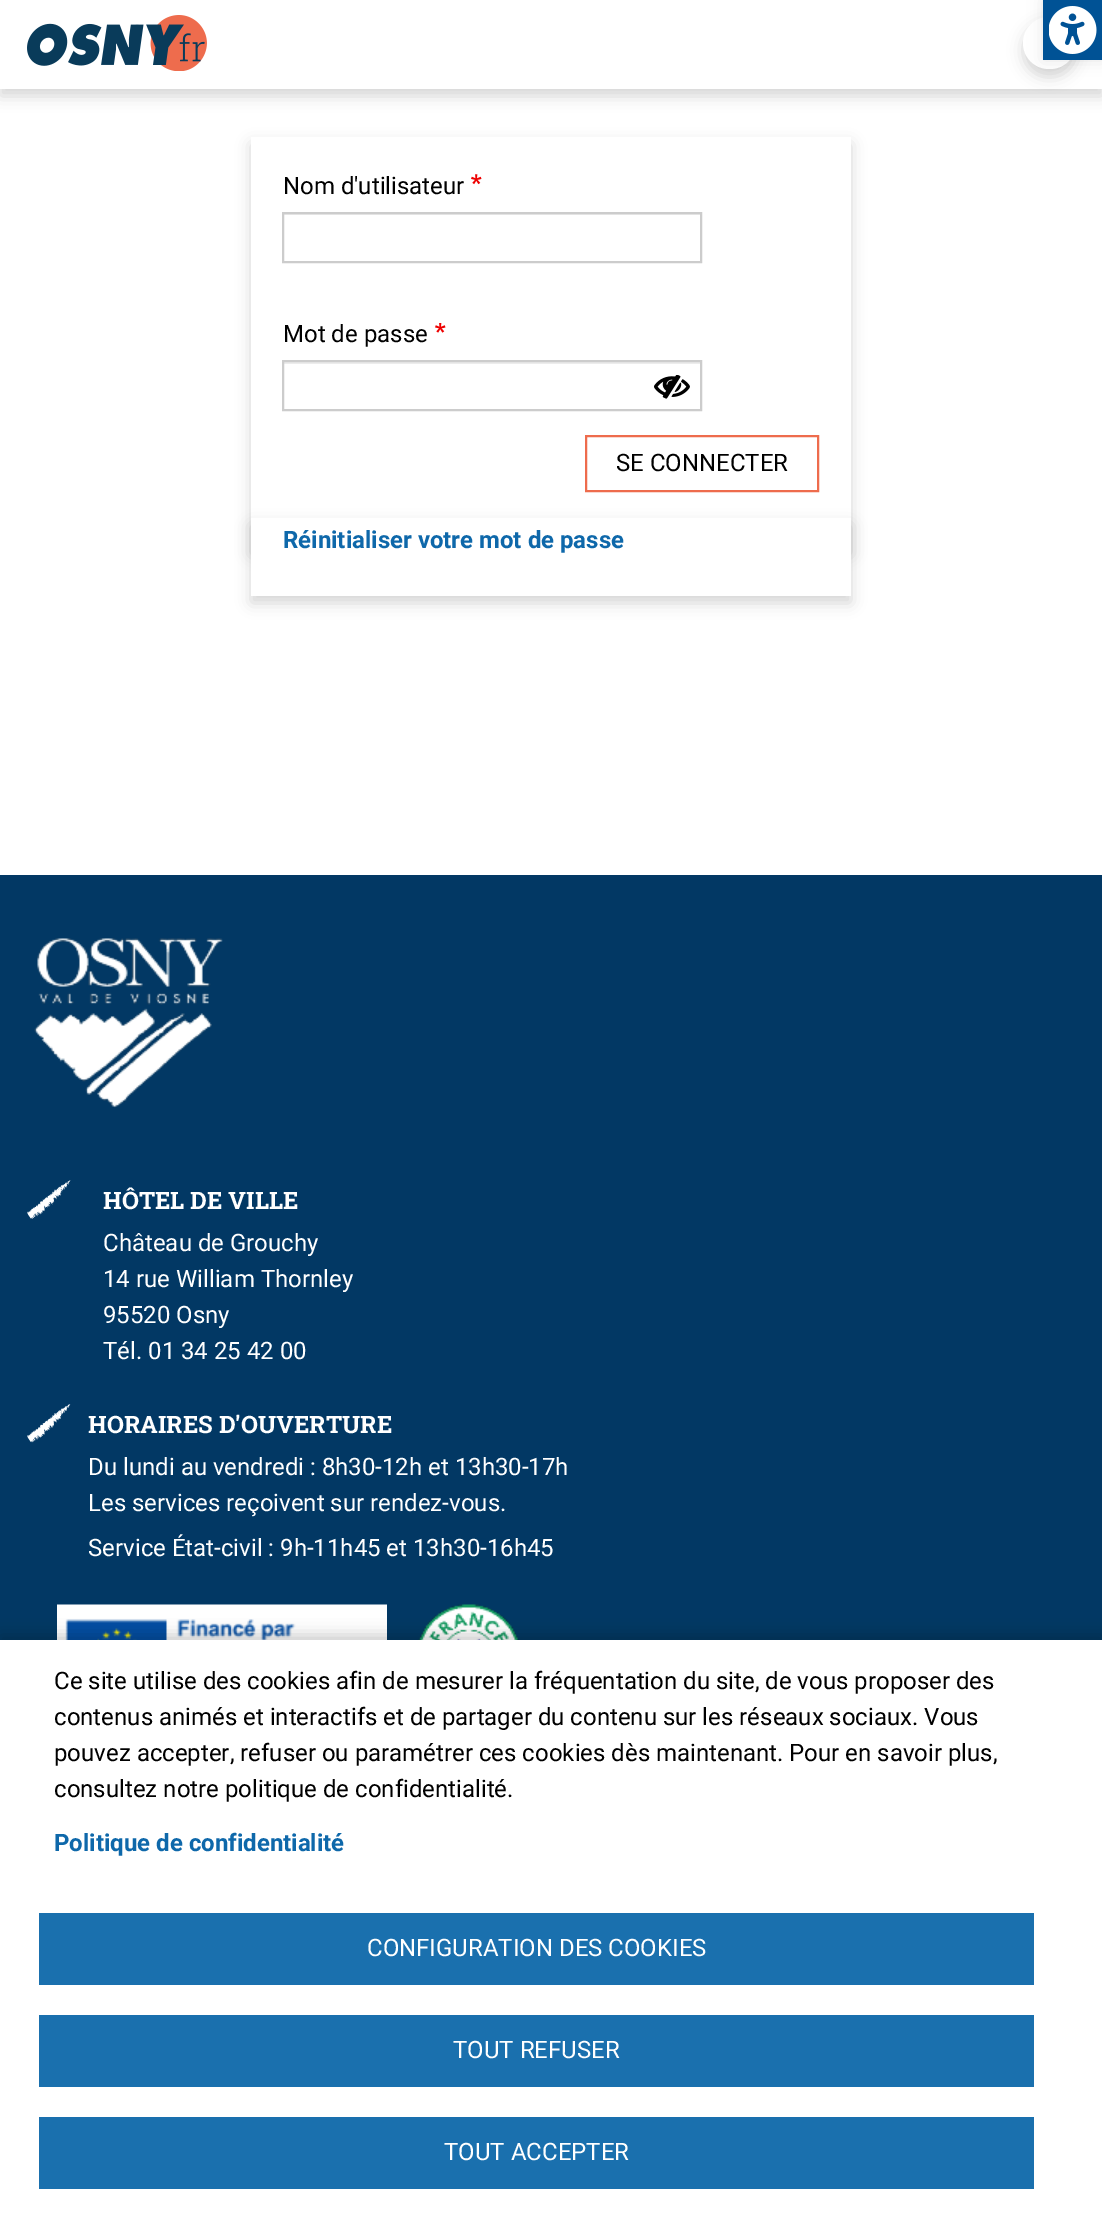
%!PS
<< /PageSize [1102 2227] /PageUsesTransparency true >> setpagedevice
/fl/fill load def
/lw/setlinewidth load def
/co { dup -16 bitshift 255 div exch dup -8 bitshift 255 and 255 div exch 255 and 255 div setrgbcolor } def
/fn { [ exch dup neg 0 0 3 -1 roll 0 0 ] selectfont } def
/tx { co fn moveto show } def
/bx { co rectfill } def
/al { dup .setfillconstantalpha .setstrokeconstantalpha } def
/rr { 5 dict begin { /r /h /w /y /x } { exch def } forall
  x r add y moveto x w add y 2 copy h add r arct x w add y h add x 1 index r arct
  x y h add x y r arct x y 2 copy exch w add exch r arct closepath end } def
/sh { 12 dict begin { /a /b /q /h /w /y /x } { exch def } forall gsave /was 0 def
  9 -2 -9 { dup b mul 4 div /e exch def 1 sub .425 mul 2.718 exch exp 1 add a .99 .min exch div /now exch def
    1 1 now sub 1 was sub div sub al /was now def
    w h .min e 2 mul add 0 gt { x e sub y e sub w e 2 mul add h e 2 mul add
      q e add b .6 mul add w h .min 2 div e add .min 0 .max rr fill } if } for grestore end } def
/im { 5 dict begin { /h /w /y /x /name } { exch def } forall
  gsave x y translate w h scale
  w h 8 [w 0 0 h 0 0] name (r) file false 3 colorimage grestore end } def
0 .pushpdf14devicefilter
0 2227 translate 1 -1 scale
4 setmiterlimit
0 0 1102 2227 16#FFFFFF bx
16#000000 co
0 8 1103 88 0 7.5 .16 sh
0 0 1102 89 16#FFFFFF bx
16#000000 co
1023 24 53 53 26.5 7.5 .16 sh
16#FFFFFF co
1023 17 53 52 26 rr fl
16#000000 co
1043 0 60 60 0 7.5 .1 sh
1043 0 59 60 16#005295 bx
(media/1.raw) 1049 6 48 48 im
(media/2.raw) 27 15 180 56 im
16#000000 co
251 144 600 411 0 7.5 .16 sh
251 137 600 381 16#FFFFFF bx
(media/3.raw) 471 174 11 11 im
284 214 417 1 16#ECECEC bx
16#CCCCCC co
2 lw
283 213 418 49 rectstroke
(media/4.raw) 435 323 11 10 im
284 362 417 2 16#ECECEC bx
16#CCCCCC co
283 361 418 49 rectstroke
(media/5.raw) 654 375 36 24 im
16#EE6C4D co
586 436 232 55 rectstroke
16#000000 co
251 525 600 78 0 7.5 .16 sh
251 518 600 78 16#FFFFFF bx
0 875 1102 765 16#023864 bx
(media/6.raw) 34 938 189 170 im
(media/7.raw) 27 1180 44 39 im
(media/8.raw) 27 1404 44 39 im
(media/9.raw) 57 1604 330 36 im
(media/10.raw) 418 1604 102 36 im
16#000000 co
0 1635 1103 588 0 7.5 .2 sh
0 1640 1102 587 16#FFFFFF bx
39 1913 995 72 16#1A70AE bx
39 2015 995 72 16#1A70AE bx
39 2117 995 72 16#1A70AE bx
(Nom d'utilisateur) 283 194 /Roboto-Regular 24 16#000000 tx
(Mot de passe) 283 342 /Roboto-Regular 24 16#000000 tx
(SE CONNECTER) 616 471 /Roboto-Regular 24 16#000000 tx
(Réinitialiser votre mot de passe) 283 548 /Roboto-Bold 24 16#0E68AA tx
(HÔTEL DE VILLE) 103 1209 /RobotoSlab-Bold 24 16#FFFFFF tx
(Château de Grouchy) 103 1251 /Roboto-Regular 24 16#FFFFFF tx
(14 rue William Thornley) 103 1287 /Roboto-Regular 24 16#FFFFFF tx
(95520 Osny) 103 1323 /Roboto-Regular 24 16#FFFFFF tx
(Tél. 01 34 25 42 00) 103 1359 /Roboto-Regular 24 16#FFFFFF tx
(HORAIRES D'OUVERTURE) 88 1433 /RobotoSlab-Bold 24 16#FFFFFF tx
(Du lundi au vendredi : 8h30-12h et 13h30-17h) 88 1475 /Roboto-Regular 24 16#FFFFFF tx
(Les services reçoivent sur rendez-vous.) 88 1511 /Roboto-Regular 24 16#FFFFFF tx
(Service État-civil : 9h-11h45 et 13h30-16h45) 88 1556 /Roboto-Regular 24 16#FFFFFF tx
(Ce site utilise des cookies afin de mesurer la fréquentation du site, de vous proposer des) 54 1689 /Roboto-Regular 24 16#000000 tx
(contenus animés et interactifs et de partager du contenu sur les réseaux sociaux. Vous) 54 1725 /Roboto-Regular 24 16#000000 tx
(pouvez accepter, refuser ou paramétrer ces cookies dès maintenant. Pour en savoir plus,) 54 1761 /Roboto-Regular 24 16#000000 tx
(consultez notre politique de confidentialité.) 54 1797 /Roboto-Regular 24 16#000000 tx
(Politique de confidentialité) 54 1851 /Roboto-Bold 24 16#0E68AA tx
(CONFIGURATION DES COOKIES) 367 1956 /Roboto-Regular 24 16#FFFFFF tx
(TOUT REFUSER) 453 2058 /Roboto-Regular 24 16#FFFFFF tx
(TOUT ACCEPTER) 444 2160 /Roboto-Regular 24 16#FFFFFF tx
.poppdf14devicefilter showpage
